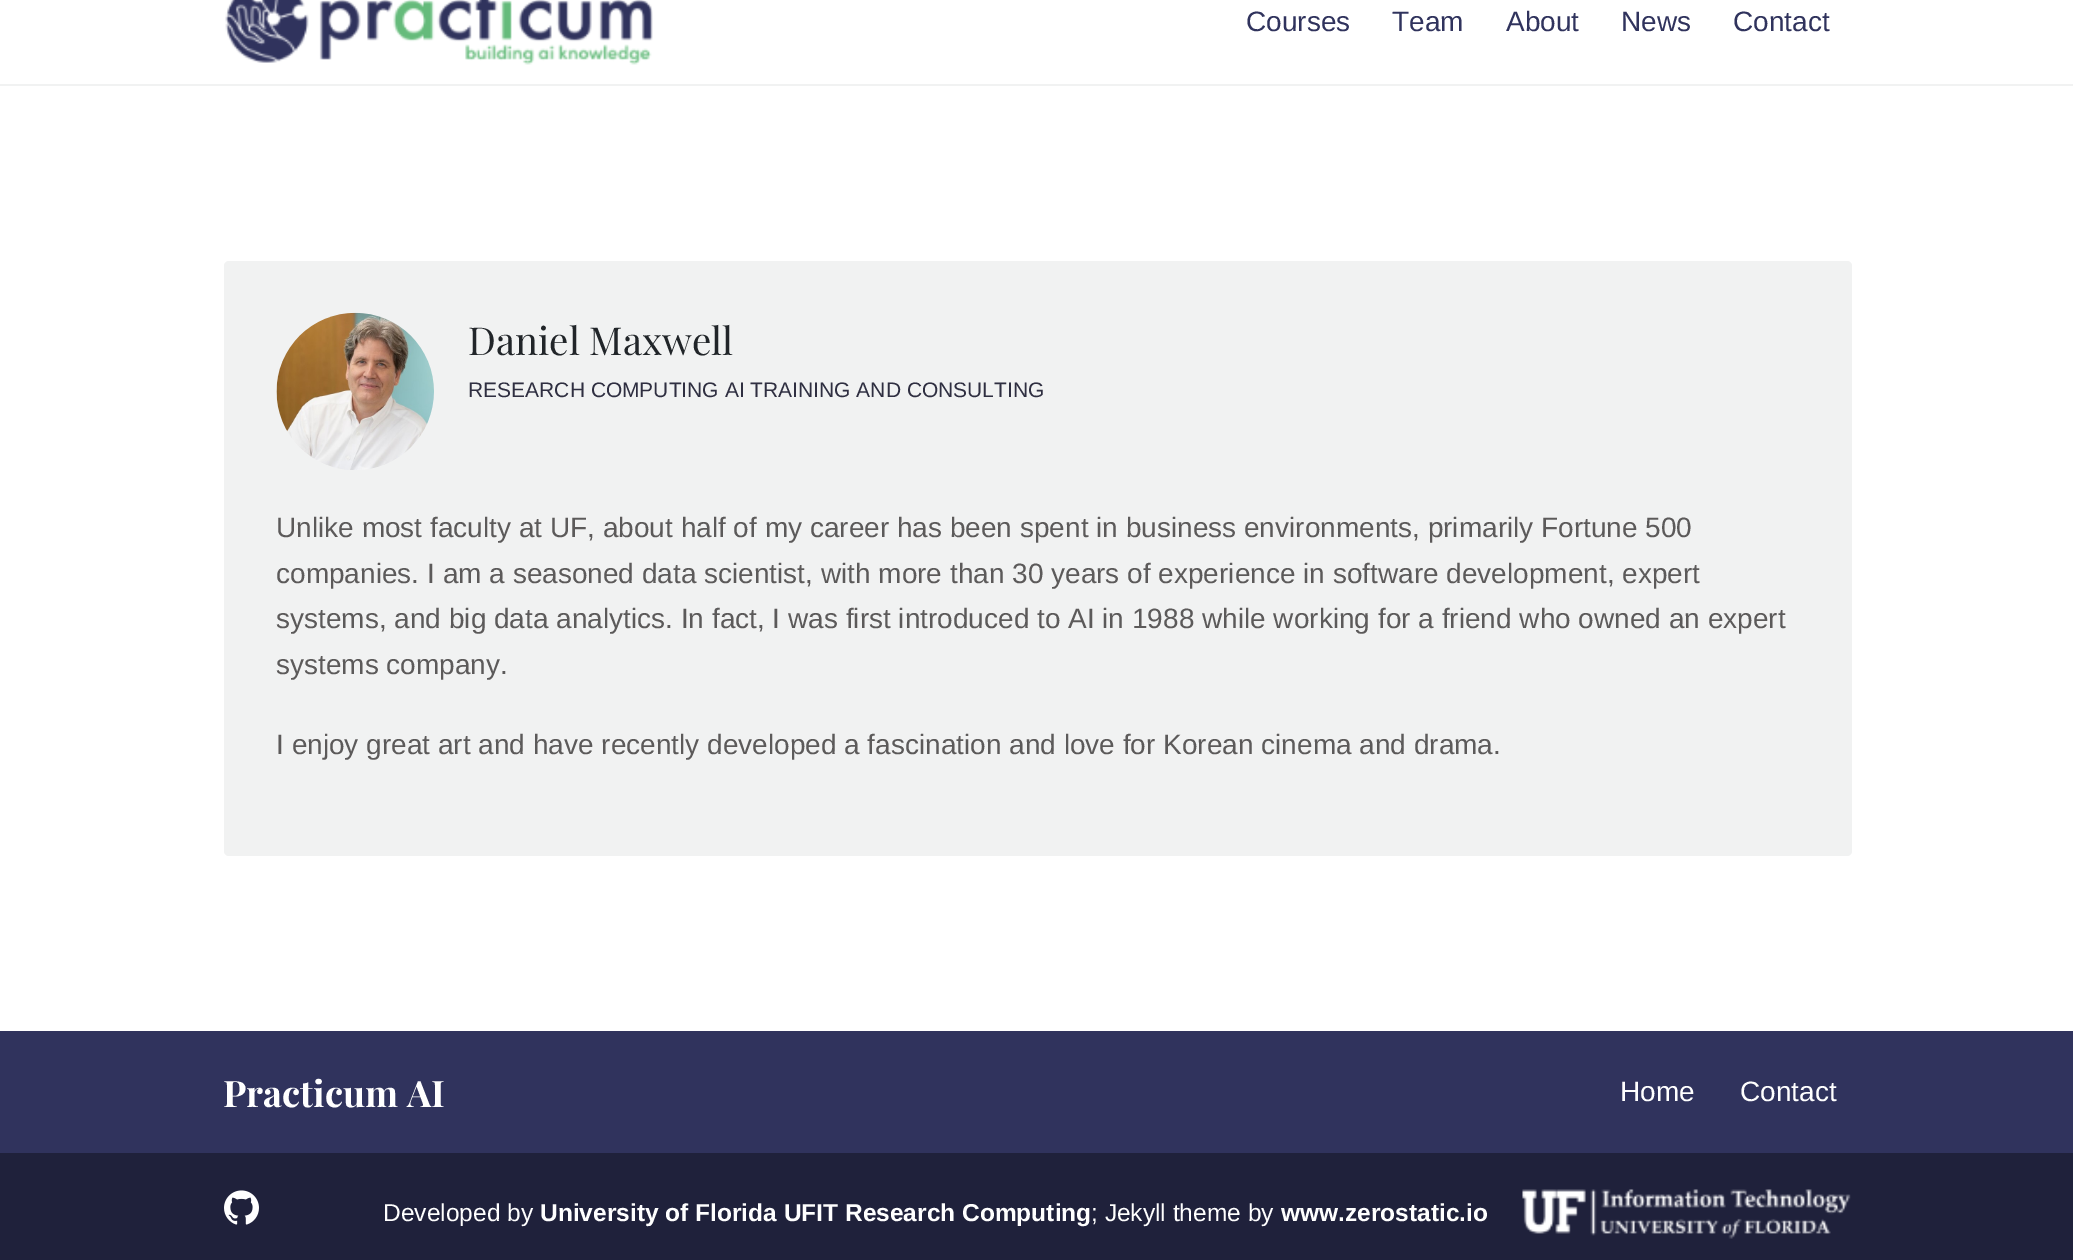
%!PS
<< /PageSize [2073 1260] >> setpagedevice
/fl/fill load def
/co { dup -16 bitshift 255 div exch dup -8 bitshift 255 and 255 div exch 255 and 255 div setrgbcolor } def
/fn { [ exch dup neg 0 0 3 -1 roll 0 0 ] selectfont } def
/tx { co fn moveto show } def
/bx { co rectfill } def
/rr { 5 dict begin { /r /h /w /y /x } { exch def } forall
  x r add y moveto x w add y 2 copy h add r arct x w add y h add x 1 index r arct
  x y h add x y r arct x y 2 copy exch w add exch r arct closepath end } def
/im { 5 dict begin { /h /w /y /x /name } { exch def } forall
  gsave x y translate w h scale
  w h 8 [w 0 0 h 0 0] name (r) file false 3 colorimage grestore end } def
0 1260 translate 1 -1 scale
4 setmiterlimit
0 0 2073 1260 16#FFFFFF bx
0 84 2073 2 16#F1F2F2 bx
(media/1.raw) 225 0 428 65 im
224 261 1628 595 5 rr fl
(media/2.raw) 276 312 158 158 im
0 1031 2073 122 16#30335D bx
0 1153 2073 107 16#1F213B bx
(media/3.raw) 224 1190 35 35 im
(media/4.raw) 1522 1189 329 50 im
(Courses) 1246 31 /LiberationSans-Regular 28 16#30335D tx
(Team) 1392 31 /LiberationSans-Regular 28 16#30335D tx
(About) 1506 31 /LiberationSans-Regular 28 16#30335D tx
(News) 1621 31 /LiberationSans-Regular 28 16#30335D tx
(Contact) 1733 31 /LiberationSans-Regular 28 16#30335D tx
(Daniel Maxwell) 468 355 /PlayfairDisplay-Regular 38.5 16#212529 tx
(RESEARCH COMPUTING AI TRAINING AND CONSULTING) 468 397 /LiberationSans-Regular 21 16#2F2F41 tx
(Unlike most faculty at UF, about half of my career has been spent in business environments, primarily Fortune 500) 276 537 /LiberationSans-Regular 28 16#5C5A5A tx
(companies. I am a seasoned data scientist, with more than 30 years of experience in software development, expert) 276 583 /LiberationSans-Regular 28 16#5C5A5A tx
(systems, and big data analytics. In fact, I was first introduced to AI in 1988 while working for a friend who owned an expert) 276 628 /LiberationSans-Regular 28 16#5C5A5A tx
(systems company.) 276 674 /LiberationSans-Regular 28 16#5C5A5A tx
(I enjoy great art and have recently developed a fascination and love for Korean cinema and drama.) 276 754 /LiberationSans-Regular 28 16#5C5A5A tx
(Practicum AI) 223 1107 /PlayfairDisplay-Bold 36.5 16#FFFFFF tx
(Home) 1620 1101 /LiberationSans-Regular 28 16#FFFFFF tx
(Contact) 1740 1101 /LiberationSans-Regular 28 16#FFFFFF tx
(Developed by) 383 1221 /LiberationSans-Regular 24.5 16#FFFFFF tx
(University of Florida UFIT Research Computing) 540 1221 /LiberationSans-Bold 24.5 16#FFFFFF tx
(; Jekyll theme by) 1091 1221 /LiberationSans-Regular 24.5 16#FFFFFF tx
(www.zerostatic.io) 1281 1221 /LiberationSans-Bold 24.5 16#FFFFFF tx
showpage
